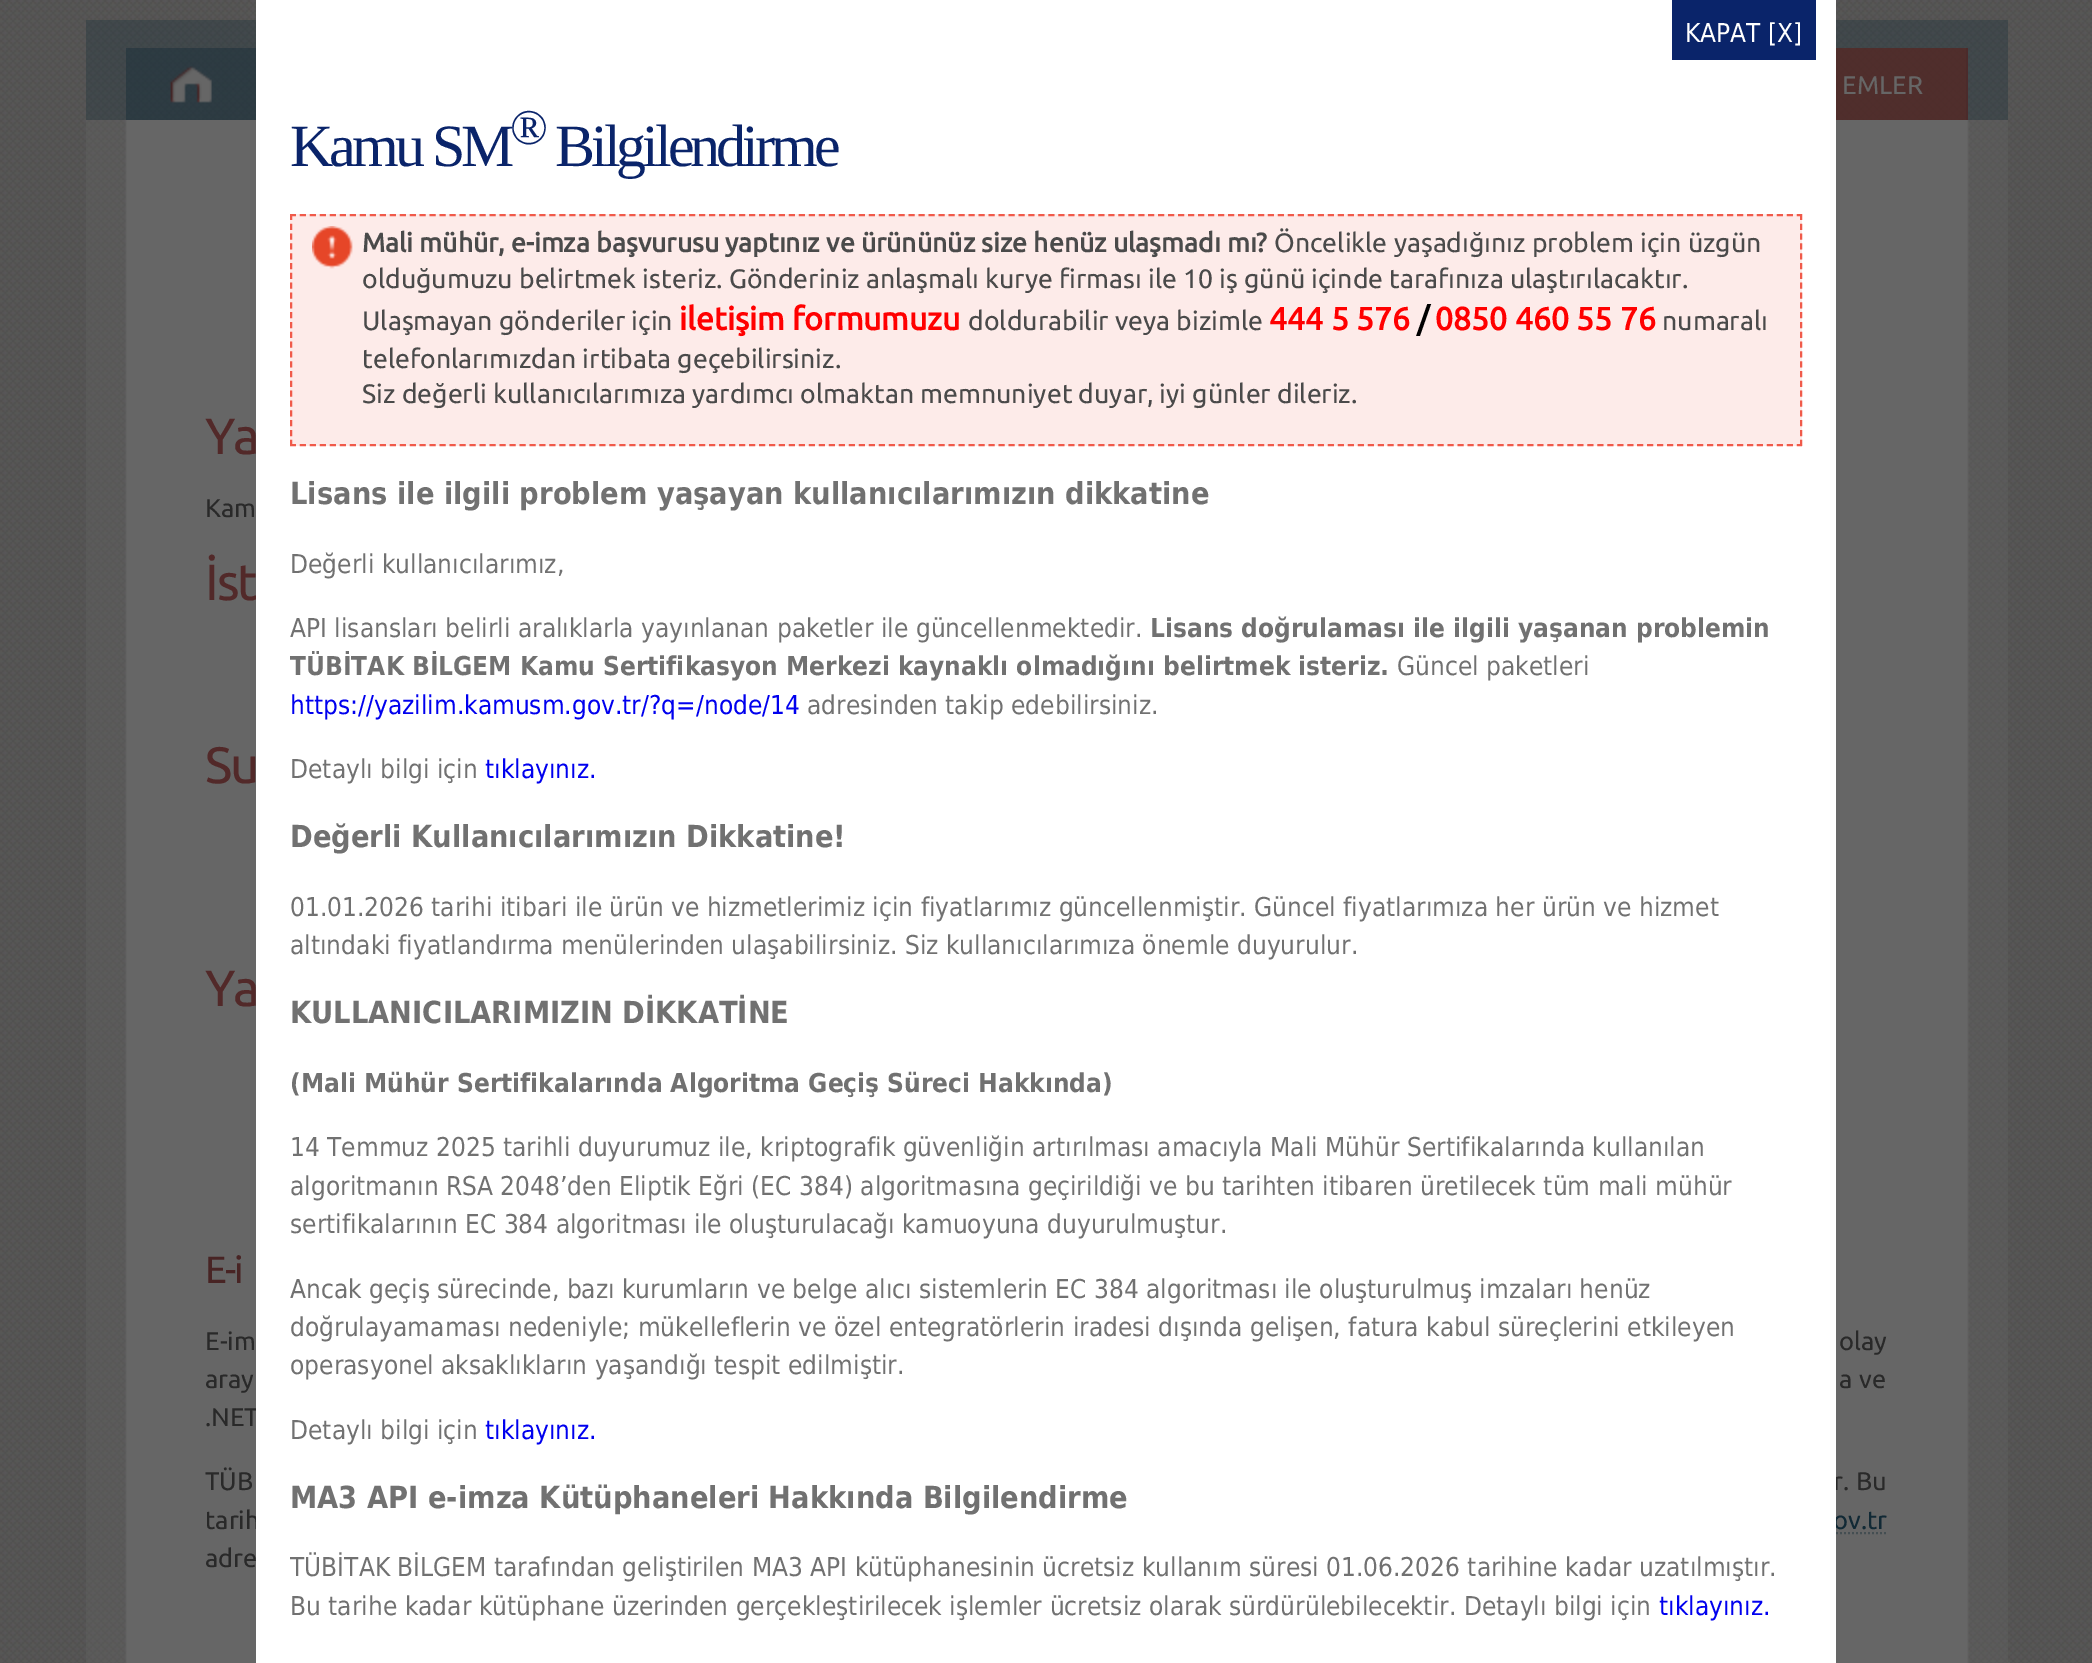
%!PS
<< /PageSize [2092 1663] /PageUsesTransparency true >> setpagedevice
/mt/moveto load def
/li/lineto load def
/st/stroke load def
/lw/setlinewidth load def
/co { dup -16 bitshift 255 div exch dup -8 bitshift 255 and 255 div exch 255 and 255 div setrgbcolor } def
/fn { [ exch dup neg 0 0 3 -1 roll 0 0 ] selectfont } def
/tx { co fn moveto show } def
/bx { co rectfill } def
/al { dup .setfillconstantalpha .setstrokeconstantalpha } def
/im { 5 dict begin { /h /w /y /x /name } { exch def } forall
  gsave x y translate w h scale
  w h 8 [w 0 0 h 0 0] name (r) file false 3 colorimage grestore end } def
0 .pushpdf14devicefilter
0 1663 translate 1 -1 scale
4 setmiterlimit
0 0 2092 1663 16#FFFFFF bx
(media/1.raw) 0 0 2092 1663 im
0.3 al
86 20 40 28 16#112935 bx
126 20 1842 28 16#112935 bx
1968 20 40 28 16#112935 bx
86 48 40 72 16#112935 bx
1 al
(media/3.raw) 126 48 1840 72 im
0.5 al
126 48 130 72 16#112935 bx
1 al
(media/4.raw) 169 66 43 37 im
1966 48 2 72 16#334149 bx
0.8 al
1836 48 132 72 16#512623 bx
0.3 al
1968 48 40 72 16#112935 bx
1 al
(media/5.raw) 86 120 1922 1542 im
16#444E52 co
2 lw
[2 2] 0 setdash
1640 1533 mt 1888 1533 li st
(media/6.raw) 86 1662 1924 1 im
(EMLER) 1842 94 /Ubuntu-Regular 25.5 16#666666 tx
/Ubuntu-Regular 51 fn
16#522929 co
205 454 mt -2 0 (Ya) ashow
(Kam) 205 517 /Ubuntu-Regular 25.5 16#292929 tx
/Ubuntu-Regular 51 fn
16#522929 co
205 600 mt -2 0 (İst) ashow
205 783 mt -2 0 (Su) ashow
205 1006 mt -2 0 (Ya) ashow
/Ubuntu-Regular 38 fn
16#482424 co
205 1283 mt -2 0 (E-i) ashow
/Ubuntu-Regular 25.5 fn
16#292929 co
205 1350 mt 2 0 32 (E-im) widthshow
1839 1350 mt 2 0 32 (olay) widthshow
205 1388 mt 1 0 32 (aray) widthshow
1839 1388 mt 1 0 32 (a ve) widthshow
(.NET) 205 1426 /Ubuntu-Regular 25.5 16#292929 tx
205 1490 mt 1 0 32 (TÜB) widthshow
1833 1490 mt 1 0 32 (r. Bu) widthshow
205 1529 mt 3 0 32 (tarih) widthshow
(ov.tr) 1833 1529 /Ubuntu-Regular 25.5 16#112935 tx
(adre) 205 1567 /Ubuntu-Regular 25.5 16#292929 tx
256 0 1580 1663 16#FFFFFF bx
(tıklayınız.) 1659 1615 /DejaVuSans-Regular 26 16#0000EE tx
(Bu tarihe kadar kütüphane üzerinden gerçekleştirilecek işlemler ücretsiz olarak sürdürülebilecektir. Detaylı bilgi için) 290 1615 /DejaVuSans-Regular 26 16#717171 tx
(TÜBİTAK BİLGEM tarafından geliştirilen MA3 API kütüphanesinin ücretsiz kullanım süresi 01.06.2026 tarihine kadar uzatılmıştır.) 290 1576 /DejaVuSans-Regular 26 16#717171 tx
(MA3 API e-imza Kütüphaneleri Hakkında Bilgilendirme) 290 1508 /DejaVuSans-Bold 30.4 16#717171 tx
(tıklayınız.) 485 1439 /DejaVuSans-Regular 26 16#0000EE tx
(Detaylı bilgi için) 290 1439 /DejaVuSans-Regular 26 16#717171 tx
(operasyonel aksaklıkların yaşandığı tespit edilmiştir.) 290 1374 /DejaVuSans-Regular 26 16#717171 tx
(doğrulayamaması nedeniyle; mükelleflerin ve özel entegratörlerin iradesi dışında gelişen, fatura kabul süreçlerini etkileyen) 290 1336 /DejaVuSans-Regular 26 16#717171 tx
(Ancak geçiş sürecinde, bazı kurumların ve belge alıcı sistemlerin EC 384 algoritması ile oluşturulmuş imzaları henüz) 290 1298 /DejaVuSans-Regular 26 16#717171 tx
(sertifikalarının EC 384 algoritması ile oluşturulacağı kamuoyuna duyurulmuştur.) 290 1233 /DejaVuSans-Regular 26 16#717171 tx
(algoritmanın RSA 2048’den Eliptik Eğri \(EC 384\) algoritmasına geçirildiği ve bu tarihten itibaren üretilecek tüm mali mühür) 290 1195 /DejaVuSans-Regular 26 16#717171 tx
(14 Temmuz 2025 tarihli duyurumuz ile, kriptografik güvenliğin artırılması amacıyla Mali Mühür Sertifikalarında kullanılan) 290 1156 /DejaVuSans-Regular 26 16#717171 tx
(\(Mali Mühür Sertifikalarında Algoritma Geçiş Süreci Hakkında\)) 290 1092 /DejaVuSans-Bold 26 16#717171 tx
(KULLANICILARIMIZIN DİKKATİNE) 290 1023 /DejaVuSans-Bold 30.4 16#717171 tx
(altındaki fiyatlandırma menülerinden ulaşabilirsiniz. Siz kullanıcılarımıza önemle duyurulur.) 290 954 /DejaVuSans-Regular 26 16#717171 tx
(01.01.2026 tarihi itibari ile ürün ve hizmetlerimiz için fiyatlarımız güncellenmiştir. Güncel fiyatlarımıza her ürün ve hizmet) 290 916 /DejaVuSans-Regular 26 16#717171 tx
(Değerli Kullanıcılarımızın Dikkatine!) 290 847 /DejaVuSans-Bold 30.4 16#717171 tx
(tıklayınız.) 485 778 /DejaVuSans-Regular 26 16#0000EE tx
(Detaylı bilgi için) 290 778 /DejaVuSans-Regular 26 16#717171 tx
(adresinden takip edebilirsiniz.) 807 714 /DejaVuSans-Regular 26 16#717171 tx
(https://yazilim.kamusm.gov.tr/?q=/node/14) 290 714 /DejaVuSans-Regular 26 16#0000EE tx
(Güncel paketleri) 1397 675 /DejaVuSans-Regular 26 16#717171 tx
(TÜBİTAK BİLGEM Kamu Sertifikasyon Merkezi kaynaklı olmadığını belirtmek isteriz.) 290 675 /DejaVuSans-Bold 26 16#717171 tx
(Lisans doğrulaması ile ilgili yaşanan problemin) 1150 637 /DejaVuSans-Bold 26 16#717171 tx
(API lisansları belirli aralıklarla yayınlanan paketler ile güncellenmektedir.) 290 637 /DejaVuSans-Regular 26 16#717171 tx
(Değerli kullanıcılarımız,) 290 573 /DejaVuSans-Regular 26 16#717171 tx
(Lisans ile ilgili problem yaşayan kullanıcılarımızın dikkatine) 290 504 /DejaVuSans-Bold 30.4 16#717171 tx
290 214 1512 232 16#FDEBE9 bx
(Siz değerli kullanıcılarımıza yardımcı olmaktan memnuniyet duyar, iyi günler dileriz.) 362 403 /Ubuntu-Regular 26.65 16#4A4A4A tx
(telefonlarımızdan irtibata geçebilirsiniz.) 362 368 /Ubuntu-Regular 26.65 16#4A4A4A tx
(numaralı) 1662 330 /Ubuntu-Regular 26.65 16#4A4A4A tx
(0850 460 55 76) 1435 330 /Ubuntu-Bold 32 16#FF0000 tx
(/) 1417 330 /Ubuntu-Bold 32 16#000000 tx
(444 5 576) 1269 330 /Ubuntu-Bold 32 16#FF0000 tx
(doldurabilir veya bizimle) 968 330 /Ubuntu-Regular 26.65 16#4A4A4A tx
(iletişim formumuzu) 679 330 /Ubuntu-Bold 32 16#FF0000 tx
(Ulaşmayan gönderiler için) 362 330 /Ubuntu-Regular 26.65 16#4A4A4A tx
(olduğumuzu belirtmek isteriz. Gönderiniz anlaşmalı kurye firması ile 10 iş günü içinde tarafınıza ulaştırılacaktır.) 362 288 /Ubuntu-Regular 26.65 16#4A4A4A tx
(Öncelikle yaşadığınız problem için üzgün) 1274 252 /Ubuntu-Regular 26.65 16#4A4A4A tx
(Mali mühür, e-imza başvurusu yaptınız ve ürününüz size henüz ulaşmadı mı?) 362 252 /Ubuntu-Bold 26.65 16#4A4A4A tx
(media/2.raw) 312 226 41 43 im
/LiberationSerif-Regular 60 fn
16#0A246A co
555 166 mt -4 0 (Bilgilendirme) ashow
290 166 mt -4 0 (Kamu SM) ashow
/LiberationSerif-Regular 50 fn
510 144 mt -4 0 (®) ashow
1672 0 144 60 16#0A246A bx
(KAPAT [X]) 1685 42 /DejaVuSans-Regular 26 16#FFFFFF tx
16#F05A4A co
[6 3.98] 0 setdash
290 215 mt 1802 215 li st
[6 3.82] 0 setdash
1801 214 mt 1801 446 li st
[6 3.98] 0 setdash
290 445 mt 1802 445 li st
[6 3.82] 0 setdash
291 214 mt 291 446 li st
.poppdf14devicefilter showpage
